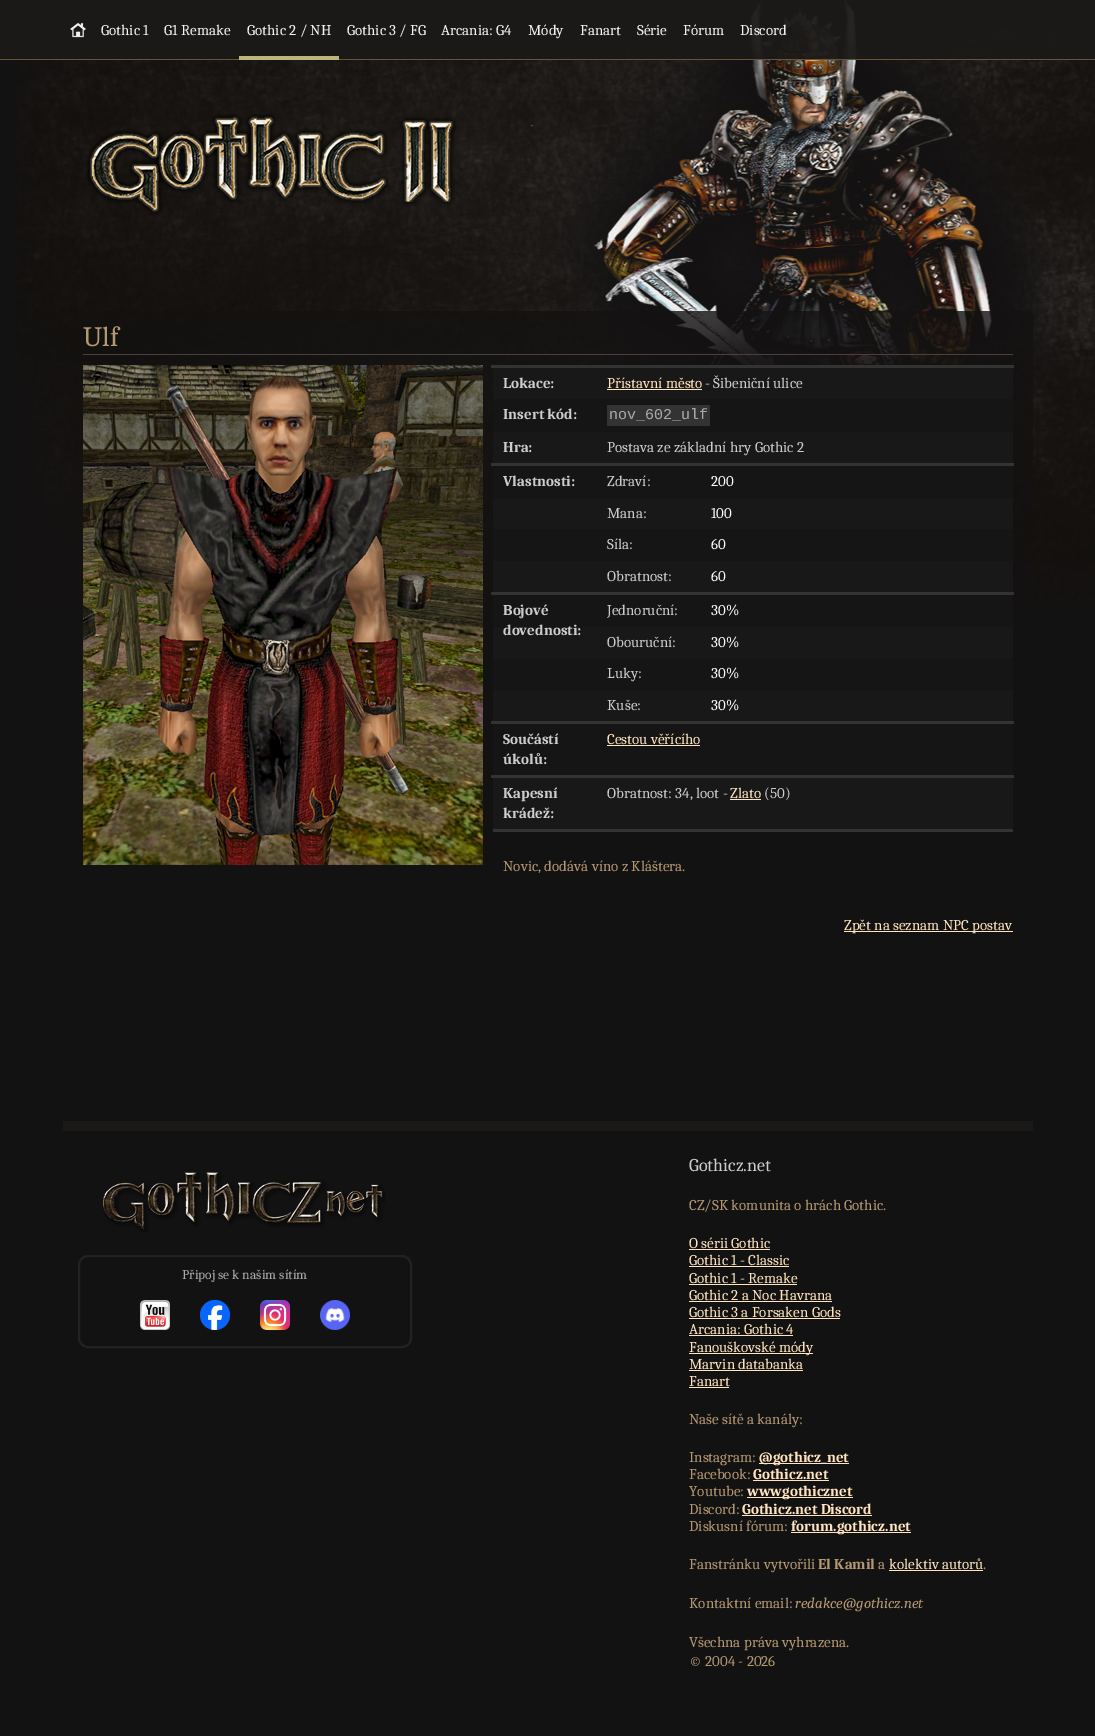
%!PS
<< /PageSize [1095 1736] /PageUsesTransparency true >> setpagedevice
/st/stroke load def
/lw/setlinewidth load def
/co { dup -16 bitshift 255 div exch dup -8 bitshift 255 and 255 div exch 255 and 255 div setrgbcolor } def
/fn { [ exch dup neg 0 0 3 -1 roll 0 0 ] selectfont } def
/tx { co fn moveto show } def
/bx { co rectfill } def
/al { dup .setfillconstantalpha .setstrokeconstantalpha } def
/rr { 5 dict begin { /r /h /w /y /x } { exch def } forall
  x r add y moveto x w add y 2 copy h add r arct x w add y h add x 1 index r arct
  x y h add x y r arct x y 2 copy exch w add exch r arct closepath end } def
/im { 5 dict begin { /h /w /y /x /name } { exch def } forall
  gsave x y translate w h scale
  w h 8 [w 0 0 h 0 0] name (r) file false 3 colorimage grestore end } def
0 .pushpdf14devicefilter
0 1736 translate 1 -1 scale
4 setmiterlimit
0 0 1095 1736 16#131212 bx
(media/1.raw) 16 0 1079 611 im
0.95 al
0 0 1095 60 16#1B1918 bx
0 59 1095 1 16#6B563B bx
1 al
(media/2.raw) 70 22 16 16 im
0.95 al
239 56 100 4 16#C3BF7D bx
1 al
(media/3.raw) 86 114 370 101 im
0.8 al
73 311 960 300 16#131111 bx
1 al
83 354 930 1 16#4B4040 bx
(media/4.raw) 83 365 400 500 im
493 399 520 376 16#151515 bx
493 829 520 3 16#333333 bx
493 368 520 31 16#181818 bx
491 365 523 3 16#333333 bx
607 389 95 1 16#FFE4BF bx
607 405 103 21 16#333333 bx
493 432 520 31 16#181818 bx
491 463 523 3 16#333333 bx
493 498 520 31 16#181818 bx
493 561 520 31 16#181818 bx
491 592 523 3 16#333333 bx
493 627 520 31 16#181818 bx
493 690 520 31 16#181818 bx
491 721 523 3 16#333333 bx
607 745 93 1 16#FFE4BF bx
493 778 520 51 16#181818 bx
491 775 523 3 16#333333 bx
730 799 31 1 16#FFE4BF bx
844 931 169 1 16#FFE4BF bx
63 1121 970 10 16#1B1918 bx
(media/5.raw) 102 1172 284 60 im
16#222222 co
2 lw
79 1256 332 91 9 rr st
(media/6.raw) 140 1300 30 30 im
(media/7.raw) 200 1300 30 30 im
(media/8.raw) 260 1300 30 30 im
(media/9.raw) 320 1300 30 30 im
689 1249 81 1 16#FFE4BF bx
689 1266 100 1 16#FFE4BF bx
689 1284 108 1 16#FFE4BF bx
689 1301 143 1 16#FFE4BF bx
689 1318 151 1 16#FFE4BF bx
689 1335 104 1 16#FFE4BF bx
689 1353 124 1 16#FFE4BF bx
689 1370 114 1 16#FFE4BF bx
689 1387 40 1 16#FFE4BF bx
759 1463 90 1 16#FFE4BF bx
753 1480 76 1 16#FFE4BF bx
747 1497 106 1 16#FFE4BF bx
742 1515 130 1 16#FFE4BF bx
791 1532 120 1 16#FFE4BF bx
889 1570 94 1 16#FFE4BF bx
(Gothic 1) 101 35 /Caladea-Regular 15 16#F4F3F3 tx
(G1 Remake) 164 35 /Caladea-Regular 15 16#F4F3F3 tx
(Gothic 2 / NH) 247 35 /Caladea-Regular 15 16#F4F3F3 tx
(Gothic 3 / FG) 347 35 /Caladea-Regular 15 16#F4F3F3 tx
(Arcania: G4) 441 35 /Caladea-Regular 15 16#F4F3F3 tx
(Módy) 528 35 /Caladea-Regular 15 16#F4F3F3 tx
(Fanart) 580 35 /Caladea-Regular 15 16#F4F3F3 tx
(Série) 637 35 /Caladea-Regular 15 16#F4F3F3 tx
(Fórum) 683 35 /Caladea-Regular 15 16#F4F3F3 tx
(Discord) 740 35 /Caladea-Regular 15 16#F4F3F3 tx
(Ulf) 83 346 /Caladea-Regular 28 16#B49871 tx
(Lokace:) 503 388 /Caladea-Bold 15 16#CCCCCC tx
(Přístavní město) 607 388 /Caladea-Regular 15 16#FFE4BF tx
(- Šibeniční ulice) 705 388 /Caladea-Regular 15 16#CCCCCC tx
(Insert kód:) 503 419 /Caladea-Bold 15 16#CCCCCC tx
(nov_602_ulf) 609 419 /LiberationMono-Regular 15 16#AAAAAA tx
(Hra:) 503 452 /Caladea-Bold 15 16#CCCCCC tx
(Postava ze základní hry Gothic 2) 607 452 /Caladea-Regular 15 16#CCCCCC tx
(Vlastnosti:) 503 486 /Caladea-Bold 15 16#CCCCCC tx
(Zdraví:) 607 486 /Caladea-Regular 15 16#CCCCCC tx
(200) 711 486 /Caladea-Regular 15 16#FFFFFF tx
(Mana:) 607 518 /Caladea-Regular 15 16#CCCCCC tx
(100) 711 518 /Caladea-Regular 15 16#FFFFFF tx
(Síla:) 607 549 /Caladea-Regular 15 16#CCCCCC tx
(60) 711 549 /Caladea-Regular 15 16#FFFFFF tx
(Obratnost:) 607 581 /Caladea-Regular 15 16#CCCCCC tx
(60) 711 581 /Caladea-Regular 15 16#FFFFFF tx
(Bojové) 503 615 /Caladea-Bold 15 16#CCCCCC tx
(dovednosti:) 503 635 /Caladea-Bold 15 16#CCCCCC tx
(Jednoruční:) 607 615 /Caladea-Regular 15 16#CCCCCC tx
(30%) 711 615 /Caladea-Regular 15 16#FFFFFF tx
(Obouruční:) 607 647 /Caladea-Regular 15 16#CCCCCC tx
(30%) 711 647 /Caladea-Regular 15 16#FFFFFF tx
(Luky:) 607 678 /Caladea-Regular 15 16#CCCCCC tx
(30%) 711 678 /Caladea-Regular 15 16#FFFFFF tx
(Kuše:) 607 710 /Caladea-Regular 15 16#CCCCCC tx
(30%) 711 710 /Caladea-Regular 15 16#FFFFFF tx
(Součástí) 503 744 /Caladea-Bold 15 16#CCCCCC tx
(úkolů:) 503 764 /Caladea-Bold 15 16#CCCCCC tx
(Cestou věřícího) 607 744 /Caladea-Regular 15 16#FFE4BF tx
(Kapesní) 503 798 /Caladea-Bold 15 16#CCCCCC tx
(krádež:) 503 818 /Caladea-Bold 15 16#CCCCCC tx
(Obratnost: 34, loot -) 607 798 /Caladea-Regular 15 16#CCCCCC tx
(Zlato) 730 798 /Caladea-Regular 15 16#FFE4BF tx
(\(50\)) 764 798 /Caladea-Regular 15 16#CCCCCC tx
(Novic, dodává víno z Kláštera.) 503 871 /Caladea-Regular 15 16#B49871 tx
(Zpět na seznam NPC postav) 844 930 /Caladea-Regular 15 16#FFE4BF tx
(Připoj se k našim sítím) 182 1279 /Caladea-Regular 13.5 16#AAAAAA tx
(Gothicz.net) 689 1171 /Caladea-Regular 18 16#CCCCCC tx
(CZ/SK komunita o hrách Gothic.) 689 1210 /Caladea-Regular 15 16#B49871 tx
(O sérii Gothic) 689 1248 /Caladea-Regular 15 16#FFE4BF tx
(Gothic 1 - Classic) 689 1265 /Caladea-Regular 15 16#FFE4BF tx
(Gothic 1 - Remake) 689 1283 /Caladea-Regular 15 16#FFE4BF tx
(Gothic 2 a Noc Havrana) 689 1300 /Caladea-Regular 15 16#FFE4BF tx
(Gothic 3 a Forsaken Gods) 689 1317 /Caladea-Regular 15 16#FFE4BF tx
(Arcania: Gothic 4) 689 1334 /Caladea-Regular 15 16#FFE4BF tx
(Fanouškovské módy) 689 1352 /Caladea-Regular 15 16#FFE4BF tx
(Marvin databanka) 689 1369 /Caladea-Regular 15 16#FFE4BF tx
(Fanart) 689 1386 /Caladea-Regular 15 16#FFE4BF tx
(Naše sítě a kanály:) 689 1424 /Caladea-Regular 15 16#B49871 tx
(Instagram:) 689 1462 /Caladea-Regular 15 16#B49871 tx
(@gothicz_net) 759 1462 /Caladea-Bold 15 16#FFE4BF tx
(Facebook:) 689 1479 /Caladea-Regular 15 16#B49871 tx
(Gothicz.net) 753 1479 /Caladea-Bold 15 16#FFE4BF tx
(Youtube:) 689 1496 /Caladea-Regular 15 16#B49871 tx
(wwwgothicznet) 747 1496 /Caladea-Bold 15 16#FFE4BF tx
(Discord:) 689 1514 /Caladea-Regular 15 16#B49871 tx
(Gothicz.net Discord) 742 1514 /Caladea-Bold 15 16#FFE4BF tx
(Diskusní fórum:) 689 1531 /Caladea-Regular 15 16#B49871 tx
(forum.gothicz.net) 791 1531 /Caladea-Bold 15 16#FFE4BF tx
(Fanstránku vytvořili) 689 1569 /Caladea-Regular 15 16#B49871 tx
(El Kamil) 818 1569 /Caladea-Bold 15 16#B49871 tx
(a) 878 1569 /Caladea-Regular 15 16#B49871 tx
(kolektiv autorů) 889 1569 /Caladea-Regular 15 16#FFE4BF tx
(.) 983 1569 /Caladea-Regular 15 16#B49871 tx
(Kontaktní email:) 689 1608 /Caladea-Regular 15 16#B49871 tx
(redakce@gothicz.net) 795 1608 /Caladea-Italic 15 16#B49871 tx
(Všechna práva vyhrazena.) 689 1647 /Caladea-Regular 15 16#B49871 tx
(© 2004 - 2026) 689 1666 /Caladea-Regular 15 16#B49871 tx
.poppdf14devicefilter showpage
